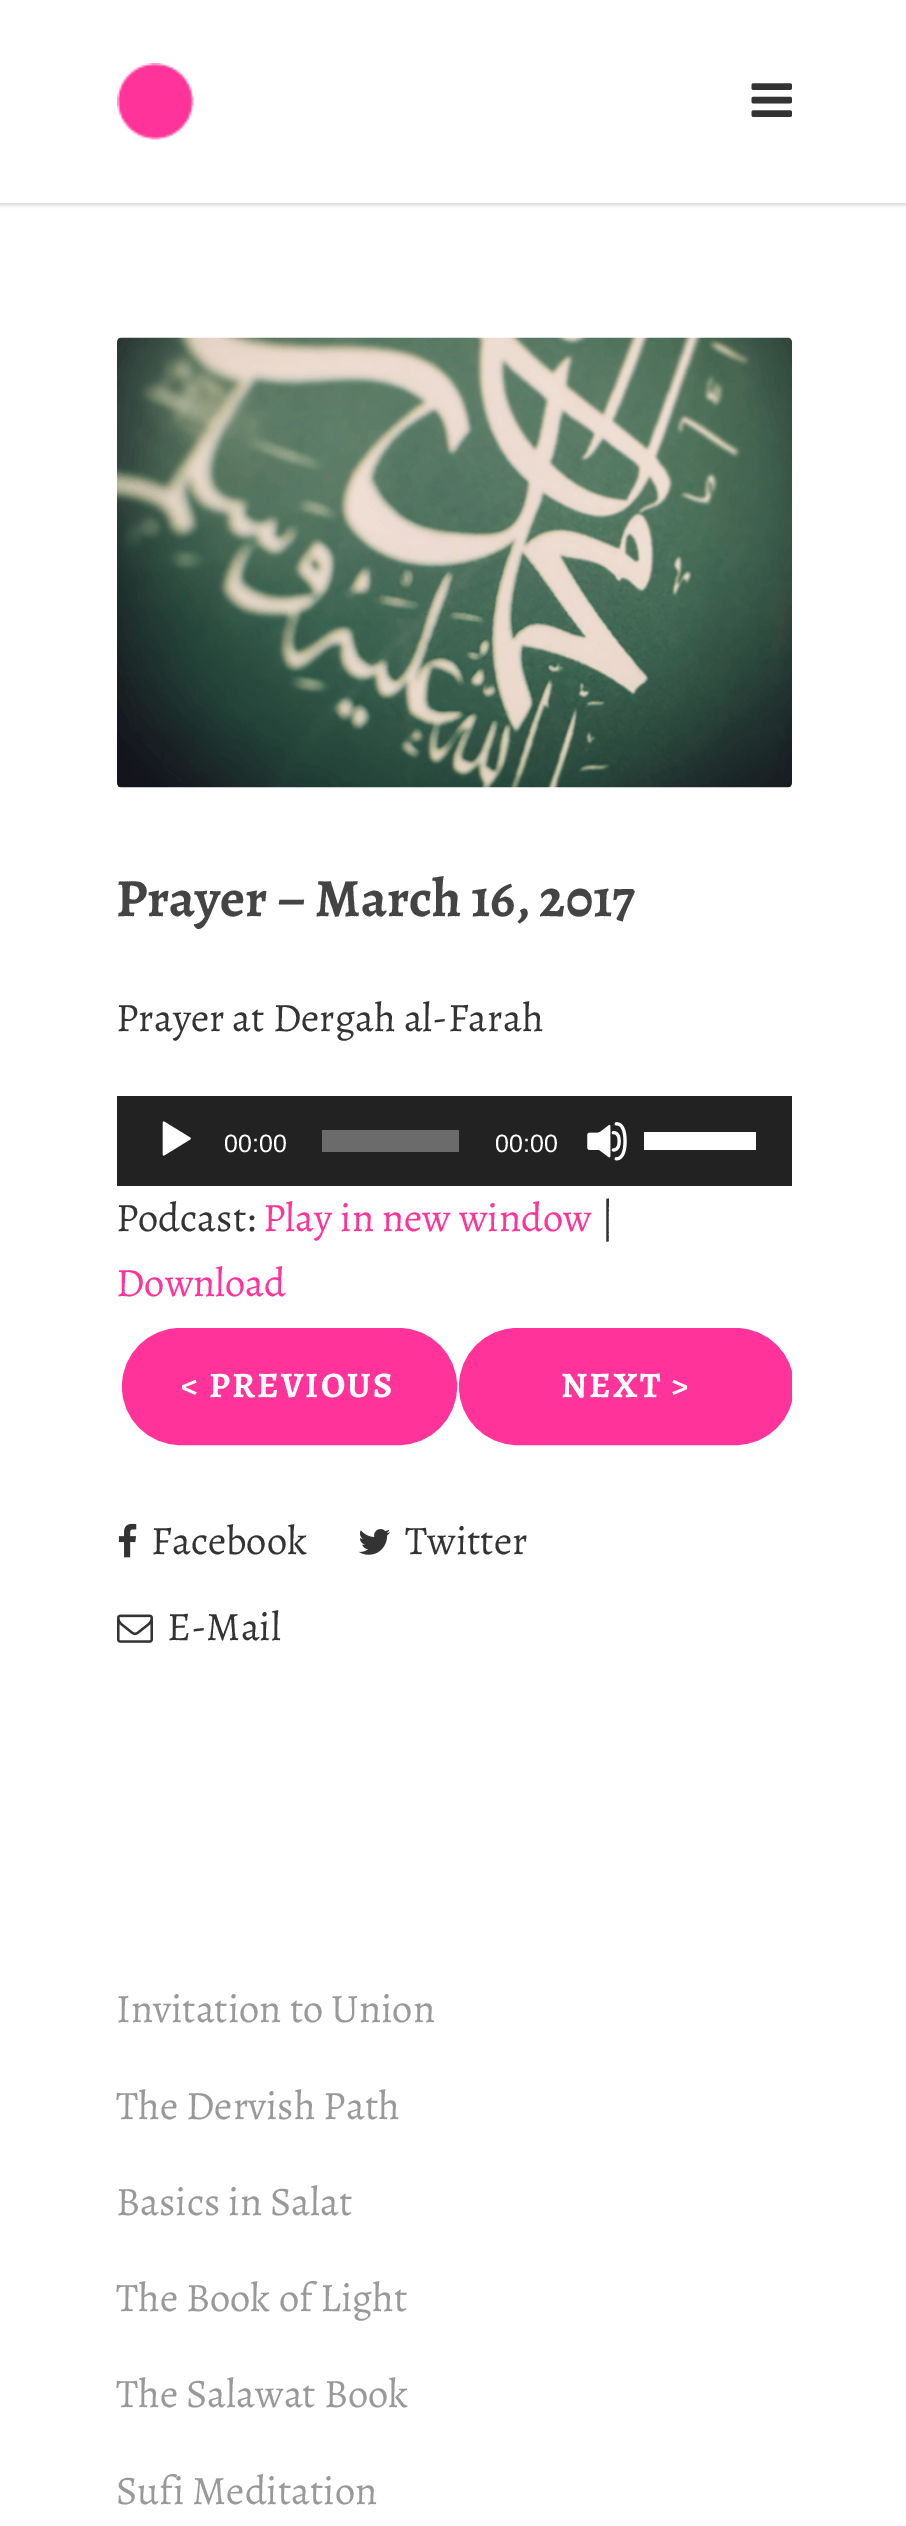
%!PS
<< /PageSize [906 2526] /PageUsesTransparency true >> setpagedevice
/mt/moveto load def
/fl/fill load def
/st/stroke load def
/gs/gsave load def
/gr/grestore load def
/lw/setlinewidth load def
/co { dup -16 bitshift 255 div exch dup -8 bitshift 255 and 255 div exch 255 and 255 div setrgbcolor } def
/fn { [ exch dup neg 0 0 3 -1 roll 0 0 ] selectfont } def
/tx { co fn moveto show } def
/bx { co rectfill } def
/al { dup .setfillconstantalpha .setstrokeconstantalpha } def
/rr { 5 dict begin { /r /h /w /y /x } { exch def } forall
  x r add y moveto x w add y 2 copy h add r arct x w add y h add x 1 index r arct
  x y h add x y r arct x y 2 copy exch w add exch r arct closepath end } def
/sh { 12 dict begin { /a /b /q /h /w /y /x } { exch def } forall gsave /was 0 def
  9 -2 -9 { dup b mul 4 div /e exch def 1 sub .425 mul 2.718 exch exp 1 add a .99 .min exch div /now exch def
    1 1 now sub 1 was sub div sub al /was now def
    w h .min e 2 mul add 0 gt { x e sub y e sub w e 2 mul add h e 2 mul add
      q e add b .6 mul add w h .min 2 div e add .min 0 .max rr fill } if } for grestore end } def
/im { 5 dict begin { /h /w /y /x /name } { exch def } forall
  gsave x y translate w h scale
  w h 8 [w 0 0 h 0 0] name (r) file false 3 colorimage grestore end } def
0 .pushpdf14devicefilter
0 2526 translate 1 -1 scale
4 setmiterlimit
0 0 906 2526 16#FFFFFF bx
16#000000 co
-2 -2 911 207 0 2 .16 sh
0 0 906 203 16#FFFFFF bx
(media/1.raw) 117 63 77 77 im
(media/2.raw) 751 83 41 34 im
(media/3.raw) 117 337 675 451 im
117 1096 675 90 16#222222 bx
(media/4.raw) 162 1121 29 35 im
322 1130 137 22 16#6B6B6B bx
(media/5.raw) 587 1122 40 39 im
644 1132 112 18 16#FFFFFF bx
16#FF3399 co
124.5 1330.5 330 112 56 rr gs fl gr
5 lw
st
gs
117 338 675 1116 rectclip
461.5 1330.5 330 112 56 rr gs fl gr
st
gr
(media/6.raw) 118 1523 19 35 im
(media/7.raw) 358 1529 33 26 im
(media/8.raw) 117 1614 36 29 im
(Prayer – March 16, 2017) 116 916 /Alegreya-Bold 54 16#444444 tx
(Prayer at Dergah al-Farah) 116 1031 /Alegreya-Regular 40.5 16#333333 tx
(00:00) 224 1152 /LiberationSans-Regular 25 16#FFFFFF tx
(00:00) 495 1152 /LiberationSans-Regular 25 16#FFFFFF tx
(Podcast:) 116 1231 /Alegreya-Regular 40.5 16#333333 tx
(Play in new window) 263 1231 /Alegreya-Regular 40.5 16#FF3399 tx
(|) 600 1231 /Alegreya-Regular 40.5 16#333333 tx
(Download) 116 1296 /Alegreya-Regular 40.5 16#FF3399 tx
/Alegreya-Bold 36 fn
16#FFFFFF co
181 1397 mt 2.25 0 (< PREVIOUS) ashow
561 1397 mt 2.25 0 (NEXT >) ashow
(Facebook) 151 1554 /Alegreya-Regular 40.5 16#333333 tx
(Twitter) 405 1554 /Alegreya-Regular 40.5 16#333333 tx
(E-Mail) 167 1640 /Alegreya-Regular 40.5 16#333333 tx
(Invitation to Union) 116 2022 /Alegreya-Regular 40.5 16#999999 tx
(The Dervish Path) 116 2119 /Alegreya-Regular 40.5 16#999999 tx
(Basics in Salat) 116 2215 /Alegreya-Regular 40.5 16#999999 tx
(The Book of Light) 116 2311 /Alegreya-Regular 40.5 16#999999 tx
(The Salawat Book) 116 2407 /Alegreya-Regular 40.5 16#999999 tx
(Sufi Meditation) 116 2504 /Alegreya-Regular 40.5 16#999999 tx
.poppdf14devicefilter showpage
